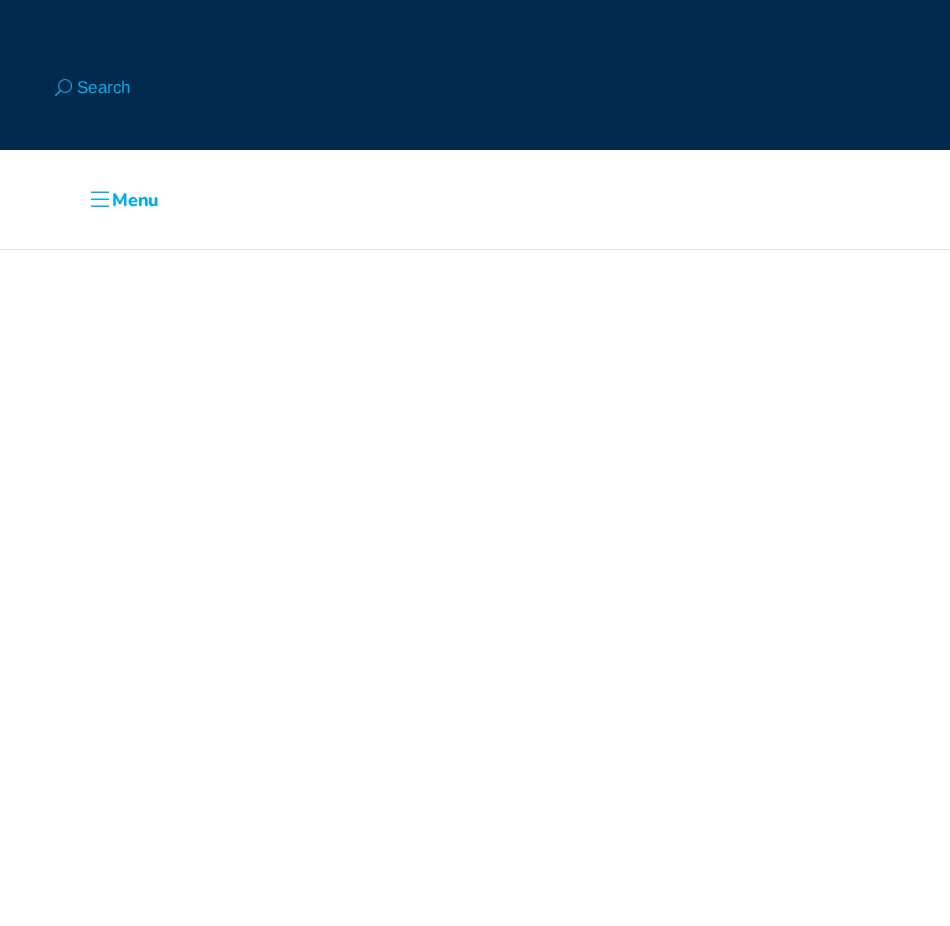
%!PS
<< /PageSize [950 926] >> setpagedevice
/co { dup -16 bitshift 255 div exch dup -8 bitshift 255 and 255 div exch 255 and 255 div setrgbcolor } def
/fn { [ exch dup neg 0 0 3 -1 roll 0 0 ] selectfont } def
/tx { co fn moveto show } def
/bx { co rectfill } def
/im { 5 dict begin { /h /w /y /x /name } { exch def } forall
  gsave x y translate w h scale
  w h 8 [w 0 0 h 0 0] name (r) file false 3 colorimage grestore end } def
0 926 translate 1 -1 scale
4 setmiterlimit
0 0 950 926 16#FFFFFF bx
0 0 950 150 16#002A4D bx
(media/1.raw) 55 79 17 18 im
0 249 950 1 16#E1E1E1 bx
91 192 18 1 16#00AEEF bx
91 191 18 1 16#80D7F7 bx
91 199 18 1 16#00AEEF bx
91 198 18 1 16#80D7F7 bx
91 206 18 1 16#00AEEF bx
91 205 18 1 16#80D7F7 bx
(Search) 77 93 /LiberationSans-Regular 17 16#00AEEF tx
(Menu) 112 206 /Nunito-ExtraBold 18 16#00AEEF tx
showpage
